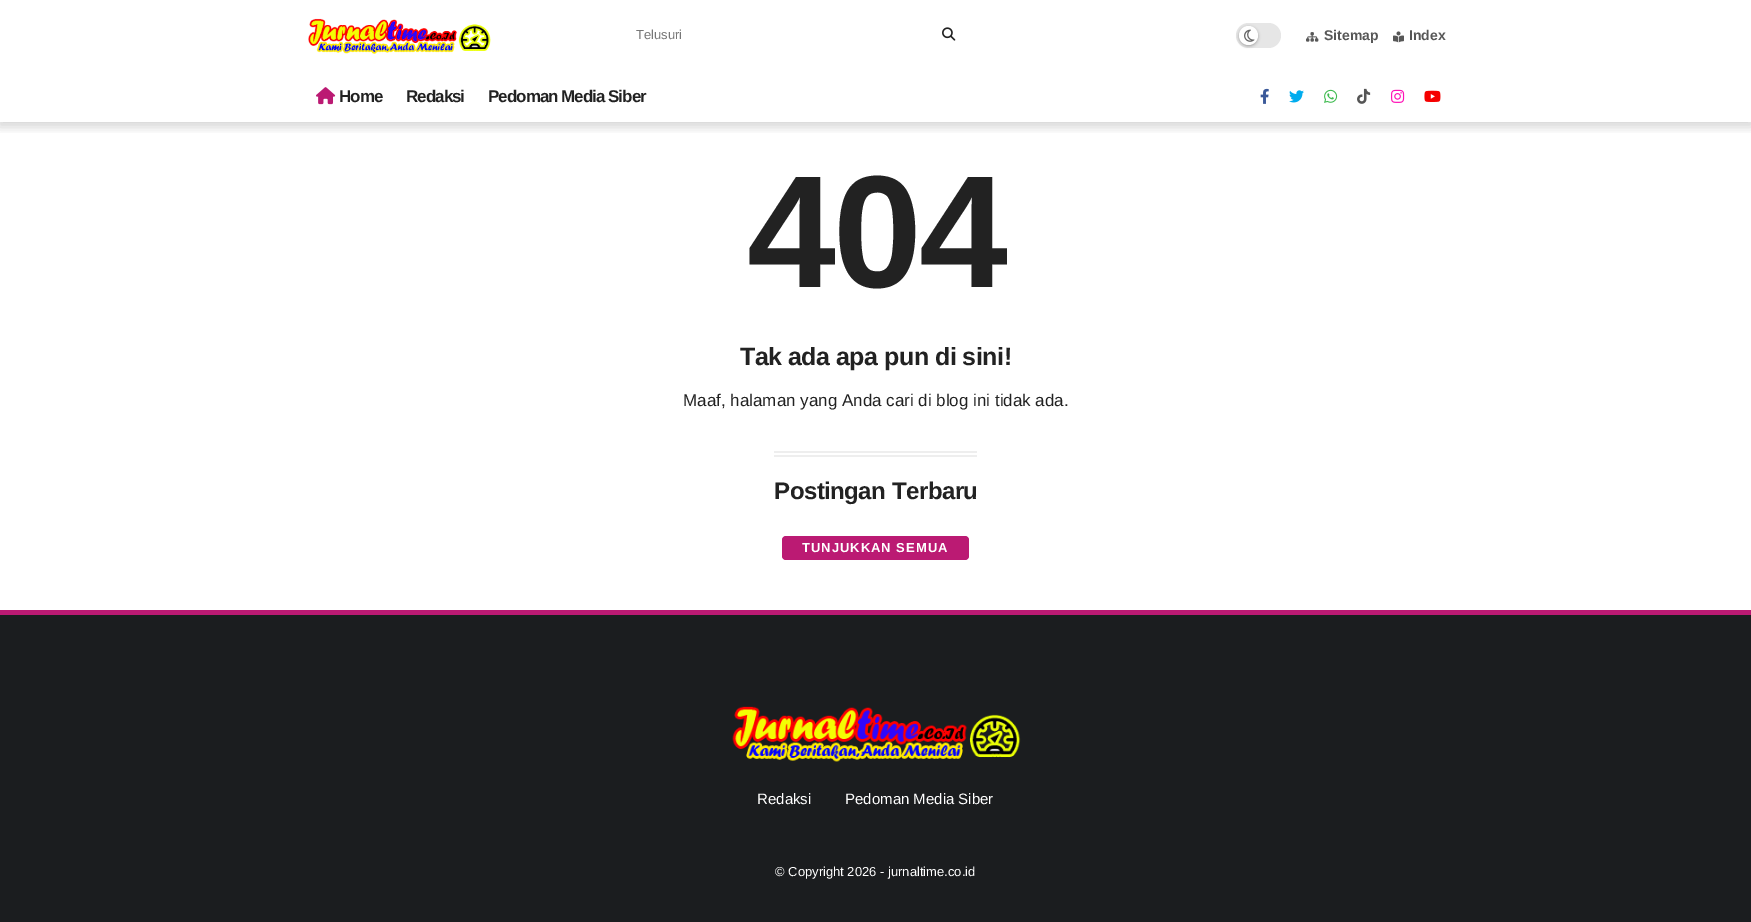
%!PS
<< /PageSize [1751 922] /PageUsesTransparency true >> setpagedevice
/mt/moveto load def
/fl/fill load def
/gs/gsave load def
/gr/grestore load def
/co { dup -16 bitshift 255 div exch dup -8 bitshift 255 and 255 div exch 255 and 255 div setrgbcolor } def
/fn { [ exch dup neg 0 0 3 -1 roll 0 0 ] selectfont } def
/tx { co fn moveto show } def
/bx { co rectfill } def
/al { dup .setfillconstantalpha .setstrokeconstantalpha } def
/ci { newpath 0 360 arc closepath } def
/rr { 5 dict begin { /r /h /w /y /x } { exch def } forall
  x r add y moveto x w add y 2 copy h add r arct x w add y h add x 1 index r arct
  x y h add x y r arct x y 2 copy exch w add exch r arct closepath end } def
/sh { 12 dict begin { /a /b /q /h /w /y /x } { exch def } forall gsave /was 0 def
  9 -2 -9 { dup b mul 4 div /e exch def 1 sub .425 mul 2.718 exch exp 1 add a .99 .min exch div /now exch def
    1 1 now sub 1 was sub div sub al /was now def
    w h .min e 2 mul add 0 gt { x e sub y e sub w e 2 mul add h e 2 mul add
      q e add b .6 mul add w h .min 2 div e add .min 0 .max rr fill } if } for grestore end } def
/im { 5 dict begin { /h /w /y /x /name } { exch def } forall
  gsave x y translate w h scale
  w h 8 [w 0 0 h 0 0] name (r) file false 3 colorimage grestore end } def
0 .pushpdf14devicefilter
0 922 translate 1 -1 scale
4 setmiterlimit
0 0 1751 922 16#FFFFFF bx
gs
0 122 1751 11 rectclip
16#000000 co
-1 3 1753 124 0 5.5 .16 sh
gr
(media/1.raw) 308 18 183 36 im
(media/2.raw) 942 27 14 14 im
16#E6E6E6 co
1236 23 45 25 12.5 rr fl
16#000000 co
1239 27 19 19 9.5 1.5 .3 sh
16#FFFFFF co
1248.5 35.5 9.5 ci fl
(media/3.raw) 1244 29 11 13 im
(media/4.raw) 1306 32 13 10 im
(media/5.raw) 1393 31 11 12 im
(media/6.raw) 316 87 20 18 im
(media/7.raw) 1260 88 9 16 im
(media/8.raw) 1289 90 15 13 im
(media/9.raw) 1324 89 14 14 im
(media/10.raw) 1357 88 14 16 im
(media/11.raw) 1391 89 14 14 im
(media/12.raw) 1424 90 17 12 im
774 451 203 2 16#EEEEEE bx
774 455 203 2 16#EEEEEE bx
16#BB1A73 co
782 536 187 24 4 rr fl
0 615 1751 307 16#1B1D1F bx
0 610 1751 5 16#BB1A73 bx
(media/13.raw) 732 706 289 56 im
(Telusuri) 636 39 /LiberationSans-Regular 13 16#777777 tx
(Sitemap) 1324 40 /LiberationSans-Bold 14 16#575757 tx
(Index) 1409 40 /LiberationSans-Bold 14 16#575757 tx
/LiberationSans-Bold 17 fn
16#222222 co
339 102 mt -1 0 (Home) ashow
406 102 mt -1 0 (Redaksi) ashow
488 102 mt -1 0 (Pedoman Media Siber) ashow
/LiberationSans-Bold 160 fn
747 287 mt -3 0 (404) ashow
/LiberationSans-Bold 25 fn
740 365 mt -.5 0 (Tak ada apa pun di sini!) ashow
(Maaf, halaman yang Anda cari di blog ini tidak ada.) 683 406 /LiberationSans-Regular 17 16#222222 tx
/LiberationSans-Bold 24 fn
774 499 mt -.5 0 (Postingan Terbaru) ashow
/LiberationSans-Bold 13 fn
16#FFFFFF co
802 552 mt 1 0 (TUNJUKKAN SEMUA) ashow
(Redaksi) 757 804 /LiberationSans-Regular 15 16#FFFFFF tx
(Pedoman Media Siber) 845 804 /LiberationSans-Regular 15 16#FFFFFF tx
(© Copyright 2026 - jurnaltime.co.id) 775 876 /LiberationSans-Regular 13 16#FFFFFF tx
.poppdf14devicefilter showpage
